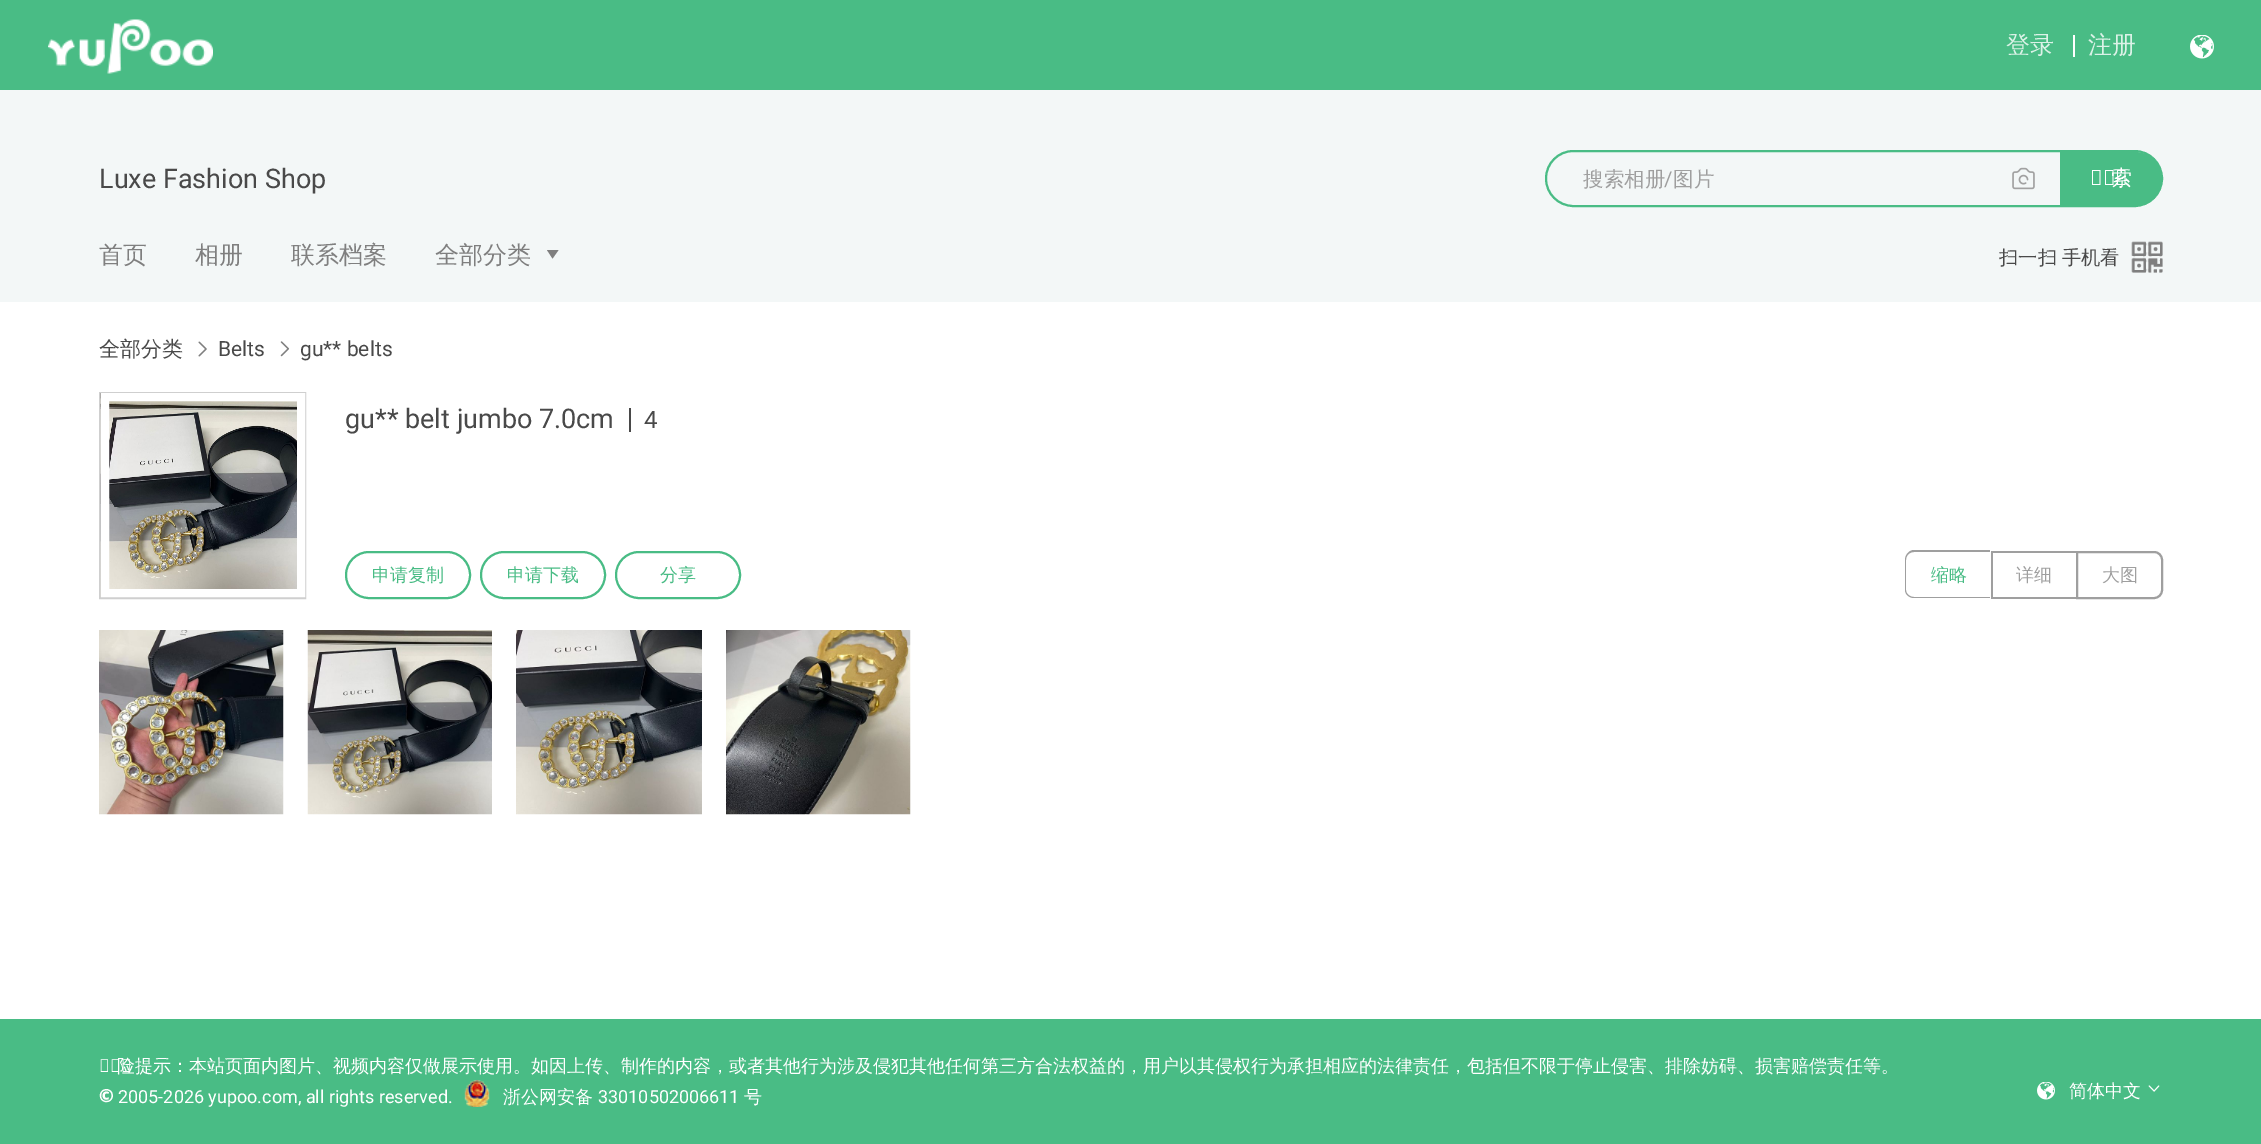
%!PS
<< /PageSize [2261 1144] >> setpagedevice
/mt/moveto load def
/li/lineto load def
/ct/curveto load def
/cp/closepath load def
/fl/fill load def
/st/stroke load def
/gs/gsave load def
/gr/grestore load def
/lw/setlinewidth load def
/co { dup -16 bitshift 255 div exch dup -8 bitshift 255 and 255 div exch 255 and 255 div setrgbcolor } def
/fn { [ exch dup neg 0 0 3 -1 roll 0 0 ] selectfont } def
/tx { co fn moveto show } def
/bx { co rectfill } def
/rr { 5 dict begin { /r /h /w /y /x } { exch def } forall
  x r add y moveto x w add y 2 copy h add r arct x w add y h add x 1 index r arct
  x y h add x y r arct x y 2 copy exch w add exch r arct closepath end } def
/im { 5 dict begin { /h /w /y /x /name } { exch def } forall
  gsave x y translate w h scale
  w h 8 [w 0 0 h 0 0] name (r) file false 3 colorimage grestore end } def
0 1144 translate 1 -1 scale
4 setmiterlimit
0 0 2261 1144 16#FFFFFF bx
0 0 2261 90 16#49BC85 bx
(media/1.raw) 48 19 165 55 im
2073 35 2 22 16#FFFFFF bx
(media/2.raw) 2190 35 24 24 im
0 90 2261 212 16#F3F7F7 bx
16#49BC85 co
2 lw
1546 151 616 55 27.5 rr st
(media/3.raw) 2012 167 23 23 im
2061 153 mt 2135 153 li 2149.5 153 2161 164.5 2161 179 ct 2161 193.5 2149.5 205 2135 205 ct 2061 205 li cp gs fl gr
st
16#7F7F7F co
552.5 258.5 mt 547 250 li 558.5 250 li cp fl
(media/4.raw) 2131 241 32 32 im
(media/5.raw) 198 341 9 16 im
(media/6.raw) 280 341 10 16 im
16#CFCFCF co
100 393 205 205 rectstroke
(media/7.raw) 100 393 197 204 im
16#FFFFFF co
8 lw
105 397 196 196 rectstroke
629 408 2 24 16#494949 bx
16#49BC85 co
2 lw
346 552 124 46 23 rr st
481 552 124 46 23 rr st
616 552 124 46 23 rr st
16#9F9F9F co
1914 550 mt 1990 550 li 1990 598 li 1914 598 li 1909 598 1905 594 1905 590 ct 1905 560 li 1905 555 1909 550 1914 550 ct cp 1914 552 mt 1990 552 li 1990 597 li 1914 597 li 1910 597 1906 594 1906 590 ct 1906 560 li 1906 555 1910 552 1914 552 ct cp eofill
1991 551 85 2 16#9F9F9F bx
1991 597 85 2 16#9F9F9F bx
1991 551 2 48 16#9F9F9F bx
2077 552 mt 2154 552 li 2158.5 552 2162 555.5 2162 560 ct 2162 590 li 2162 594.5 2158.5 598 2154 598 ct 2077 598 li cp st
(media/8.raw) 99 630 185 185 im
(media/9.raw) 307 630 185 185 im
(media/10.raw) 516 630 186 185 im
(media/11.raw) 726 630 185 185 im
0 1019 2261 125 16#49BC85 bx
(media/12.raw) 464 1080 26 27 im
(media/13.raw) 2037 1082 18 18 im
(media/14.raw) 2148 1085 12 7 im
(登录) 2006 53 /WenQuanYiZenHei-Medium 24 16#DBF2E7 tx
(注册) 2088 53 /WenQuanYiZenHei-Medium 24 16#DBF2E7 tx
(Luxe Fashion Shop) 99 188 /Roboto-Regular 27 16#494949 tx
(搜索相册) 1583 186 /WenQuanYiZenHei-Medium 20.5 16#9F9F9F tx
(/) 1664 186 /Roboto-Regular 20.5 16#9F9F9F tx
(图片) 1673 186 /WenQuanYiZenHei-Medium 20.5 16#9F9F9F tx
(搜) 2090 185 /NotoSans-Regular 21 16#FFFFFF tx
(索) 2111 185 /WenQuanYiZenHei-Medium 21 16#FFFFFF tx
(首页) 99 263 /WenQuanYiZenHei-Medium 24 16#7F7F7F tx
(相册) 195 263 /WenQuanYiZenHei-Medium 24 16#7F7F7F tx
(联系档案) 291 263 /WenQuanYiZenHei-Medium 24 16#7F7F7F tx
(全部分类) 435 263 /WenQuanYiZenHei-Medium 24 16#7F7F7F tx
/WenQuanYiZenHei-Medium 19.25 fn
16#494949 co
1999 264 mt -1 0 32 (扫一扫 手机看) widthshow
(全部分类) 99 356 /WenQuanYiZenHei-Medium 21 16#494949 tx
(Belts) 218 356 /Roboto-Regular 21 16#494949 tx
(gu** belts) 300 356 /Roboto-Regular 21 16#494949 tx
(gu** belt jumbo 7.0cm) 345 428 /Roboto-Regular 27 16#494949 tx
(4) 644 428 /Roboto-Regular 24 16#494949 tx
(申请复制) 372 581 /WenQuanYiZenHei-Medium 18 16#49BC85 tx
(申请下载) 507 581 /WenQuanYiZenHei-Medium 18 16#49BC85 tx
(分享) 660 581 /WenQuanYiZenHei-Medium 18 16#49BC85 tx
(缩略) 1931 581 /WenQuanYiZenHei-Medium 18 16#49BC85 tx
(详细) 2016 581 /WenQuanYiZenHei-Medium 18 16#9F9F9F tx
(大图) 2102 581 /WenQuanYiZenHei-Medium 18 16#9F9F9F tx
(风) 99 1072 /NotoSans-Regular 18 16#FFFFFF tx
(险提示：本站页面内图片、视频内容仅做展示使用。如因上传、制作的内容，或者其他行为涉及侵犯其他任何第三方合法权益的，用户以其侵权行为承担相应的法律责任，包括但不限于停止侵害、排除妨碍、损害赔偿责任等。) 117 1072 /WenQuanYiZenHei-Medium 18 16#FFFFFF tx
(©) 99 1102 /NotoSans-Black 18 16#FFFFFF tx
(2005-2026 yupoo.com, all rights reserved.) 118 1103 /Roboto-Regular 18 16#FFFFFF tx
(浙公网安备) 503 1103 /WenQuanYiZenHei-Medium 18 16#FFFFFF tx
(33010502006611) 598 1103 /Roboto-Regular 18 16#FFFFFF tx
(号) 744 1103 /WenQuanYiZenHei-Medium 18 16#FFFFFF tx
(简体中文) 2069 1097 /WenQuanYiZenHei-Medium 18 16#FFFFFF tx
showpage
